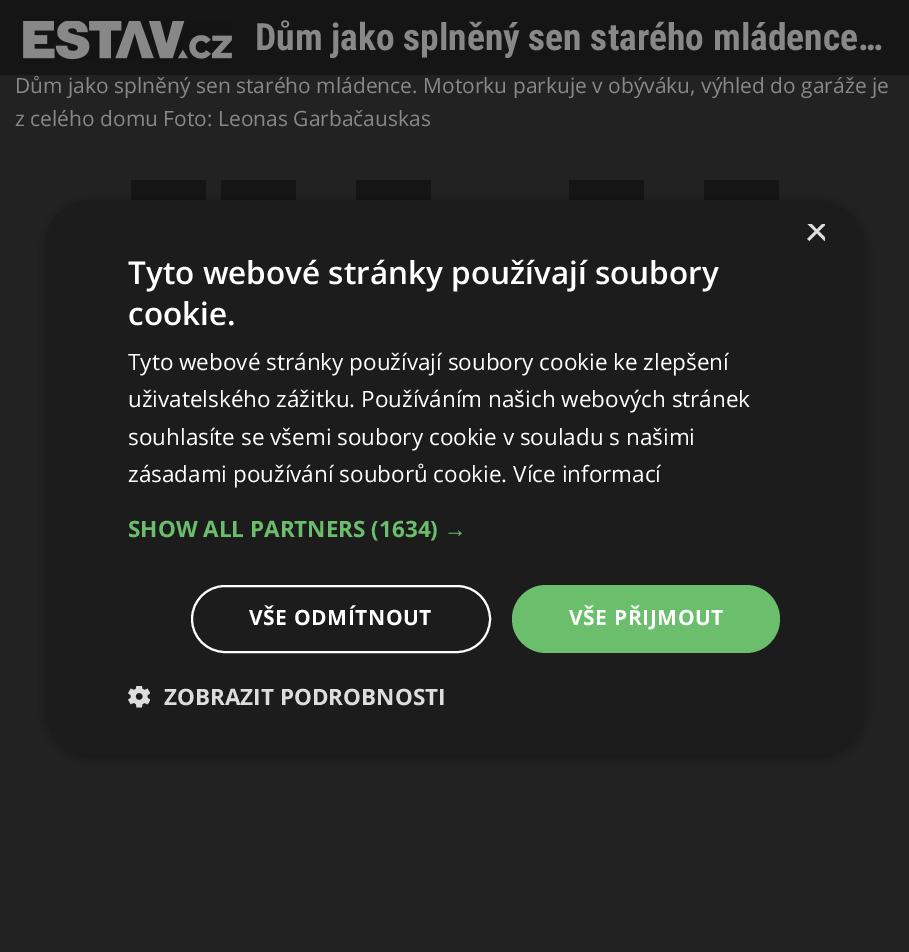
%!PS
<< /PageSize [909 952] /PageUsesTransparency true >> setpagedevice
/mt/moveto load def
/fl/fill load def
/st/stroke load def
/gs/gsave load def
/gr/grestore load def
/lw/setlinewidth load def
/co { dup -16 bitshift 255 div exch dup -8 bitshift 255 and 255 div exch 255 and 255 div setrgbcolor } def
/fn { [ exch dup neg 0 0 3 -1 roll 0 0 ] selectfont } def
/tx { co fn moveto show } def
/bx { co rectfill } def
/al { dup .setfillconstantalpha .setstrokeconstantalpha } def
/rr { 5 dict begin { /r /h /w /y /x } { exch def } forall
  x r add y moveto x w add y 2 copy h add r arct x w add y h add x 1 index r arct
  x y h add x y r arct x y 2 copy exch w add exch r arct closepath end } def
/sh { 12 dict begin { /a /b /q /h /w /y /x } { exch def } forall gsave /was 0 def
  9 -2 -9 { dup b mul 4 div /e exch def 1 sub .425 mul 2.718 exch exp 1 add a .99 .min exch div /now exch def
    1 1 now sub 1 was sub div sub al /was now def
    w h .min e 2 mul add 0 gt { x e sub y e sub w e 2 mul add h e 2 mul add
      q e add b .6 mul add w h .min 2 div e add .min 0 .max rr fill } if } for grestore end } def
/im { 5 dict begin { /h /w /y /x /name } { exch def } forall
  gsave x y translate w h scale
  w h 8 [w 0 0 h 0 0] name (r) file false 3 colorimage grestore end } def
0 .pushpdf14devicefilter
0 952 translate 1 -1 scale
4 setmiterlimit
0 0 909 952 16#222222 bx
0 0 909 75 16#151515 bx
(media/1.raw) 23 21 209 39 im
131 180 75 20 16#151515 bx
221 180 75 20 16#151515 bx
356 180 75 20 16#151515 bx
569 180 75 20 16#151515 bx
704 180 75 20 16#151515 bx
16#000000 co
47 203 817 555 45 6 .35 sh
16#1C1C1C co
45 200 818 555 45 rr fl
16#FFFFFF co
2 lw
192 586 298 66 33 rr st
16#6BBE6B co
512 585 268 68 34 rr fl
(media/2.raw) 128 686 22 22 im
(Dům jako splněný sen starého mládence…) 255 50 /RobotoCondensed-Bold 37.5 16#888888 tx
(Dům jako splněný sen starého mládence. Motorku parkuje v obýváku, výhled do garáže je) 15 93 /OpenSans-Regular 21 16#888888 tx
(z celého domu Foto: Leonas Garbačauskas) 15 126 /OpenSans-Regular 21 16#888888 tx
gs
803 224 22 22 rectclip
(×) 804 246 /LiberationSans-Regular 44 16#DDDDDD tx
gr
(Tyto webové stránky používají soubory) 128 284 /OpenSans-SemiBold 31.5 16#FFFFFF tx
(cookie.) 128 325 /OpenSans-SemiBold 31.5 16#FFFFFF tx
(Tyto webové stránky používají soubory cookie ke zlepšení) 128 370 /OpenSans-Regular 22.5 16#FFFFFF tx
(uživatelského zážitku. Používáním našich webových stránek) 128 407 /OpenSans-Regular 22.5 16#FFFFFF tx
(souhlasíte se všemi soubory cookie v souladu s našimi) 128 445 /OpenSans-Regular 22.5 16#FFFFFF tx
(zásadami používání souborů cookie. Více informací) 128 482 /OpenSans-Regular 22.5 16#FFFFFF tx
(SHOW ALL PARTNERS \(1634\)) 128 537 /OpenSans-Bold 22.5 16#6BBE6B tx
(→) 444 537 /LiberationSans-Bold 22.5 16#6BBE6B tx
/OpenSans-Bold 21 fn
16#FFFFFF co
249 625 mt .6 0 (VŠE ODMÍTNOUT) ashow
569 625 mt .6 0 (VŠE PŘIJMOUT) ashow
(ZOBRAZIT PODROBNOSTI) 164 705 /OpenSans-Bold 22.5 16#DDDDDD tx
.poppdf14devicefilter showpage
